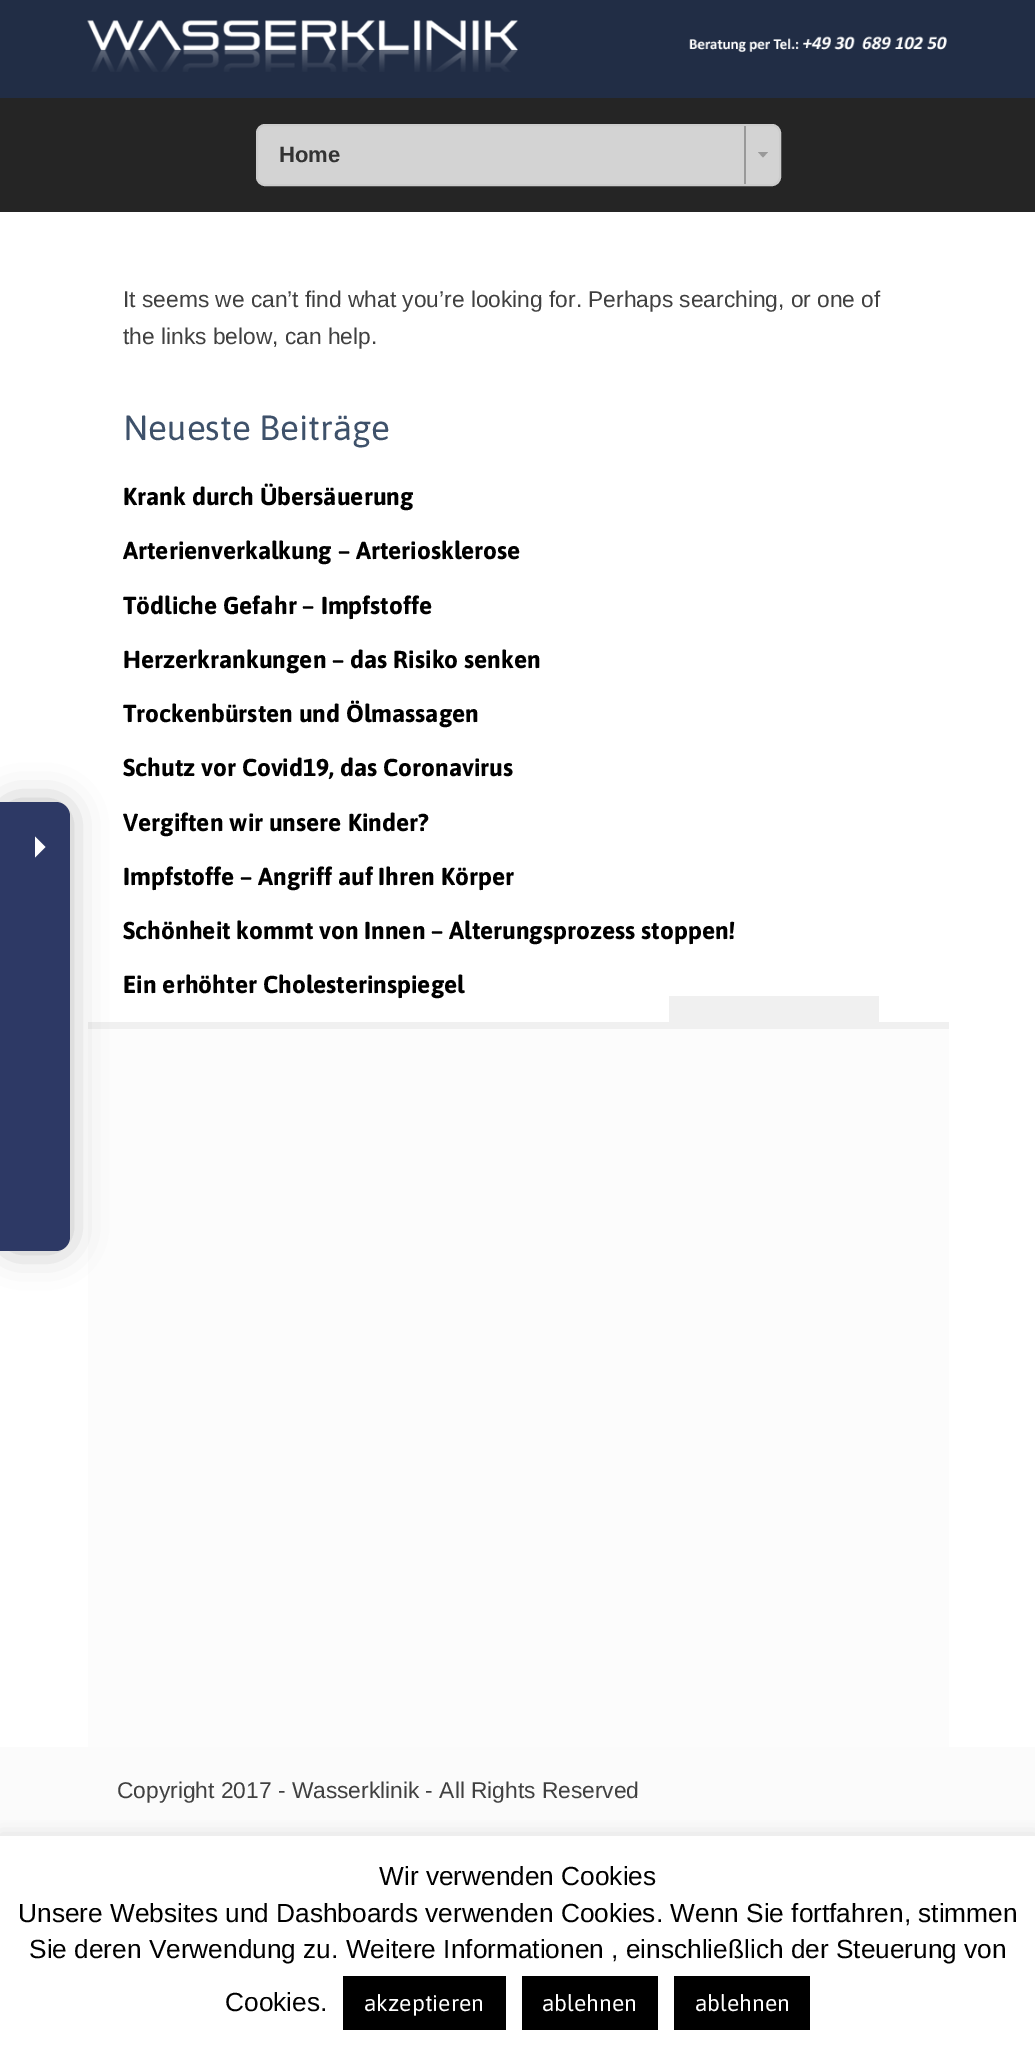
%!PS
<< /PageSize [1035 2051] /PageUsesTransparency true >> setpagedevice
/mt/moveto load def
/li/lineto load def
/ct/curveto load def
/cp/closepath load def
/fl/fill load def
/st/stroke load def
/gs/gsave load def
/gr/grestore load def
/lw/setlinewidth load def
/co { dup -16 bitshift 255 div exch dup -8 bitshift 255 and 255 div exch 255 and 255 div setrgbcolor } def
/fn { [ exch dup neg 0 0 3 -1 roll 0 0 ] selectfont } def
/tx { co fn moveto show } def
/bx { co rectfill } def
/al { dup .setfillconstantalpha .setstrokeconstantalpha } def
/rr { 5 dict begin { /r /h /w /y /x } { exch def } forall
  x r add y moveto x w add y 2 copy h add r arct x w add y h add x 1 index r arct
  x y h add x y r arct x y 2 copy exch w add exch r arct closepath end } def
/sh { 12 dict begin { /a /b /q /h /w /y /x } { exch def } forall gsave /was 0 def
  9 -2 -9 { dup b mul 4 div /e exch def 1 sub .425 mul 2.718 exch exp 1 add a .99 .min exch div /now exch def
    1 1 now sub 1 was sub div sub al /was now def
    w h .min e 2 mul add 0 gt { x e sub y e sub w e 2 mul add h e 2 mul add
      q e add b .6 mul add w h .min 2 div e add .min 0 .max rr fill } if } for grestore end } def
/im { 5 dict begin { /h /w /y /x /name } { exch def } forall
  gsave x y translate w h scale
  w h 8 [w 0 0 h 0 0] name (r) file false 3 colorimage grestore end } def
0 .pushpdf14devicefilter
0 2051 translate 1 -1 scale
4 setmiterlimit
0 0 1035 2051 16#FFFFFF bx
88 1029 861 718 16#FCFCFC bx
88 1022 861 7 16#F0F0F0 bx
16#000000 co
0 802 70 449 14 17.5 .25 sh
16#2D3965 co
0 802 mt 56 802 li 63.5 802 70 808.5 70 816 ct 70 1237 li 70 1244.5 63.5 1251 56 1251 ct 0 1251 li cp fl
16#FFFFFF co
35 857.5 mt 35 836.5 li 45.5 847 li cp fl
0 0 1035 98 16#212D45 bx
(media/1.raw) 87 20 860 52 im
0 98 1035 114 16#252525 bx
16#D3D3D3 co
257 125 523 60 8 rr gs fl gr
16#CCCCCC co
2 lw
st
744 126 2 58 16#999999 bx
758 152 mt 768 152 li 763 157.5 li cp fl
669 996 210 26 16#F0F0F0 bx
0 1747 1035 89 16#FBFBFB bx
gs
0 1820 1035 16 rectclip
16#ACABAB co
0 1834 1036 215 0 9 .3 sh
gr
343 1976 163 54 16#000000 bx
522 1976 136 54 16#000000 bx
674 1976 136 54 16#000000 bx
(Home) 279 162 /LiberationSans-Bold 22 16#333333 tx
(It seems we can’t find what you’re looking for. Perhaps searching, or one of) 123 307 /LiberationSans-Regular 22.75 16#404040 tx
(the links below, can help.) 123 344 /LiberationSans-Regular 22.75 16#404040 tx
(Neueste Beiträge) 123 440 /Asap-Regular 35 16#3E516A tx
(Krank durch Übersäuerung) 123 505 /Asap-Bold 24.5 16#000000 tx
(Arterienverkalkung – Arteriosklerose) 123 559 /Asap-Bold 24.5 16#000000 tx
(Tödliche Gefahr – Impfstoffe) 123 614 /Asap-Bold 24.5 16#000000 tx
(Herzerkrankungen – das Risiko senken) 123 668 /Asap-Bold 24.5 16#000000 tx
(Trockenbürsten und Ölmassagen) 123 722 /Asap-Bold 24.5 16#000000 tx
(Schutz vor Covid19, das Coronavirus) 123 776 /Asap-Bold 24.5 16#000000 tx
(Vergiften wir unsere Kinder?) 123 831 /Asap-Bold 24.5 16#000000 tx
(Impfstoffe – Angriff auf Ihren Körper) 123 885 /Asap-Bold 24.5 16#000000 tx
(Schönheit kommt von Innen – Alterungsprozess stoppen!) 123 939 /Asap-Bold 24.5 16#000000 tx
(Ein erhöhter Cholesterinspiegel) 123 993 /Asap-Bold 24.5 16#000000 tx
(Copyright 2017 - Wasserklinik - All Rights Reserved) 117 1798 /LiberationSans-Regular 22.75 16#404040 tx
(Wir verwenden Cookies) 379 1885 /LiberationSans-Regular 26.25 16#000000 tx
(Unsere Websites und Dashboards verwenden Cookies. Wenn Sie fortfahren, stimmen) 18 1922 /LiberationSans-Regular 26.25 16#000000 tx
(Sie deren Verwendung zu. Weitere Informationen , einschließlich der Steuerung von) 29 1958 /LiberationSans-Regular 26.25 16#000000 tx
(Cookies.) 225 2011 /LiberationSans-Regular 26.25 16#000000 tx
(akzeptieren) 364 2011 /Asap-Regular 22.75 16#FFFFFF tx
(ablehnen) 542 2011 /Asap-Regular 22.75 16#FFFFFF tx
(ablehnen) 695 2011 /Asap-Regular 22.75 16#FFFFFF tx
.poppdf14devicefilter showpage
